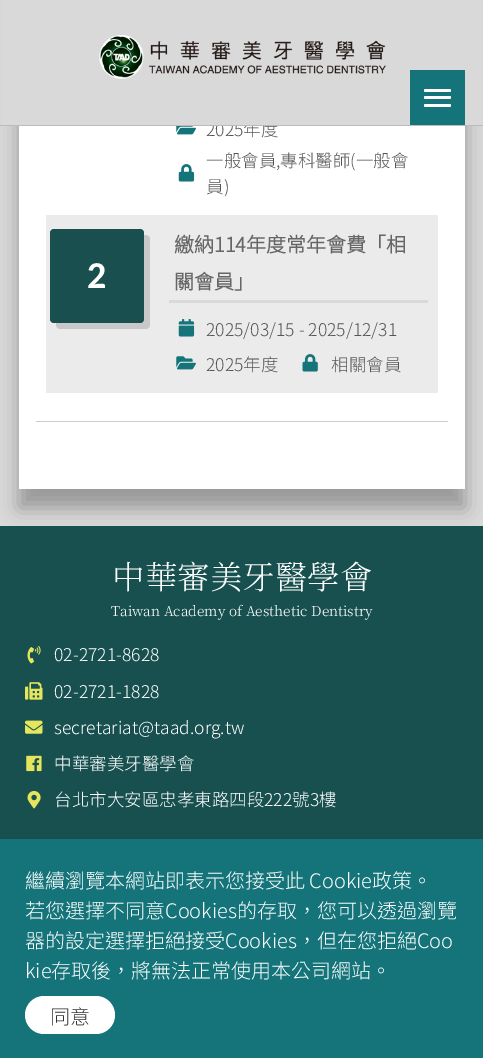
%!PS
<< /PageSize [483 1058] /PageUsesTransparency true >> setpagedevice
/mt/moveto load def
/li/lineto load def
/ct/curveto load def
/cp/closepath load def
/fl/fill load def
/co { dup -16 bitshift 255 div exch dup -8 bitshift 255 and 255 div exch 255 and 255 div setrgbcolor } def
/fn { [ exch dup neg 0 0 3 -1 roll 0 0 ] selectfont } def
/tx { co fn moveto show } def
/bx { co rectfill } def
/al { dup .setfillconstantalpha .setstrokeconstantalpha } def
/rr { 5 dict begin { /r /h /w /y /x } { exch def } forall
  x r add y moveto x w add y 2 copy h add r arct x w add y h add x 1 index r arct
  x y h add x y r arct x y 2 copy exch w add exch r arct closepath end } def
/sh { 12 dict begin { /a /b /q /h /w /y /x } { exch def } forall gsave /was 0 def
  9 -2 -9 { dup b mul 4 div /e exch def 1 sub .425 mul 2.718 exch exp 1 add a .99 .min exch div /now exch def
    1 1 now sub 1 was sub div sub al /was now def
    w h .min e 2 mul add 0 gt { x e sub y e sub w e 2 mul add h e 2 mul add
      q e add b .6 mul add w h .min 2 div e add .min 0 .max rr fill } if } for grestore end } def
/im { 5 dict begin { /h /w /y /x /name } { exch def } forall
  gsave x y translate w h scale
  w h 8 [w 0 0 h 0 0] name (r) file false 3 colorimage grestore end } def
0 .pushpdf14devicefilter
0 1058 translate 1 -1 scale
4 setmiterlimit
0 0 483 1058 16#D9D9D9 bx
0 526 483 313 16#185050 bx
16#000000 co
19 -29 446 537 0 9.5 .3 sh
19 126 446 363 16#FFFFFF bx
(media/2.raw) 176 126 20 9 im
(media/3.raw) 178 164 17 18 im
46 215 392 178 16#EBEBEB bx
16#C8C8C8 co
56 322 mt 56 325 li 56 327 58 329 60 329 ct 146 329 li 148 329 150 327 150 325 ct 150 239 li 150 237 148 235 146 235 ct 144 235 li 144 319 li 144 321 142 322 140 322 ct cp fl
16#1A4F4F co
50 229 94 94 4 rr fl
169 300 259 3 16#D9D9D9 bx
(media/4.raw) 178 319 17 18 im
(media/5.raw) 176 356 20 14 im
(media/6.raw) 302 354 16 18 im
36 421 412 1 16#CCCCCC bx
(media/7.raw) 27 646 14 18 im
(media/8.raw) 25 682 18 18 im
(media/9.raw) 25 720 18 14 im
(media/10.raw) 26 755 16 17 im
(media/11.raw) 27 791 14 18 im
0 839 483 219 16#147479 bx
16#FFFFFF co
25 996 90 38 19 rr fl
(2025年度) 206 136 /NotoSansTC-Thin 17.5 16#555555 tx
2 0 480 125 16#D9D9D9 bx
410 70 55 55 16#147479 bx
16#FFFFFF co
424 104 27 3 1.5 rr fl
424 89 27 3 1.5 rr fl
424 96 27 3 1.5 rr fl
(media/1.raw) 99 35 287 44 im
0 125 483 1 16#BBBBBB bx
(一般會員,專科醫師\(一般會) 206 167 /NotoSansTC-Thin 17.5 16#555555 tx
(員\)) 206 193 /NotoSansTC-Thin 17.5 16#555555 tx
(2) 87 288 /Carlito-Bold 38 16#FFFFFF tx
(繳納114年度常年會費「相) 174 252 /NotoSansTC-Bold 20 16#666666 tx
(關會員」) 174 289 /NotoSansTC-Bold 20 16#666666 tx
(2025/03/15 - 2025/12/31) 206 336 /NotoSansTC-Thin 17.5 16#555555 tx
(2025年度) 206 371 /NotoSansTC-Thin 17.5 16#555555 tx
(相關會員) 331 371 /NotoSansTC-Thin 17.5 16#555555 tx
(中華審美牙醫學會) 112 589 /NotoSerifTC-ExtraLight 32.5 16#FFFFFF tx
(Taiwan Academy of Aesthetic Dentistry) 111 616 /NotoSerifTC-ExtraLight 13.75 16#FFFFFF tx
(02-2721-8628) 54 661 /NotoSansTC-Thin 17.5 16#FFFFFF tx
(02-2721-1828) 54 698 /NotoSansTC-Thin 17.5 16#FFFFFF tx
(secretariat@taad.org.tw) 54 734 /NotoSansTC-Thin 17.5 16#FFFFFF tx
(中華審美牙醫學會) 54 770 /NotoSansTC-Thin 17.5 16#FFFFFF tx
(台北市大安區忠孝東路四段222號3樓) 54 806 /NotoSansTC-Thin 17.5 16#FFFFFF tx
(繼續瀏覽本網站即表示您接受此 Cookie政策。) 25 888 /NotoSansTC-Thin 20 16#FFFFFF tx
(若您選擇不同意Cookies的存取，您可以透過瀏覽) 25 918 /NotoSansTC-Thin 20 16#FFFFFF tx
(器的設定選擇拒絕接受Cookies，但在您拒絕Coo) 25 948 /NotoSansTC-Thin 20 16#FFFFFF tx
(kie存取後，將無法正常使用本公司網站。) 25 978 /NotoSansTC-Thin 20 16#FFFFFF tx
(同意) 50 1024 /NotoSansTC-Thin 20 16#333333 tx
.poppdf14devicefilter showpage
